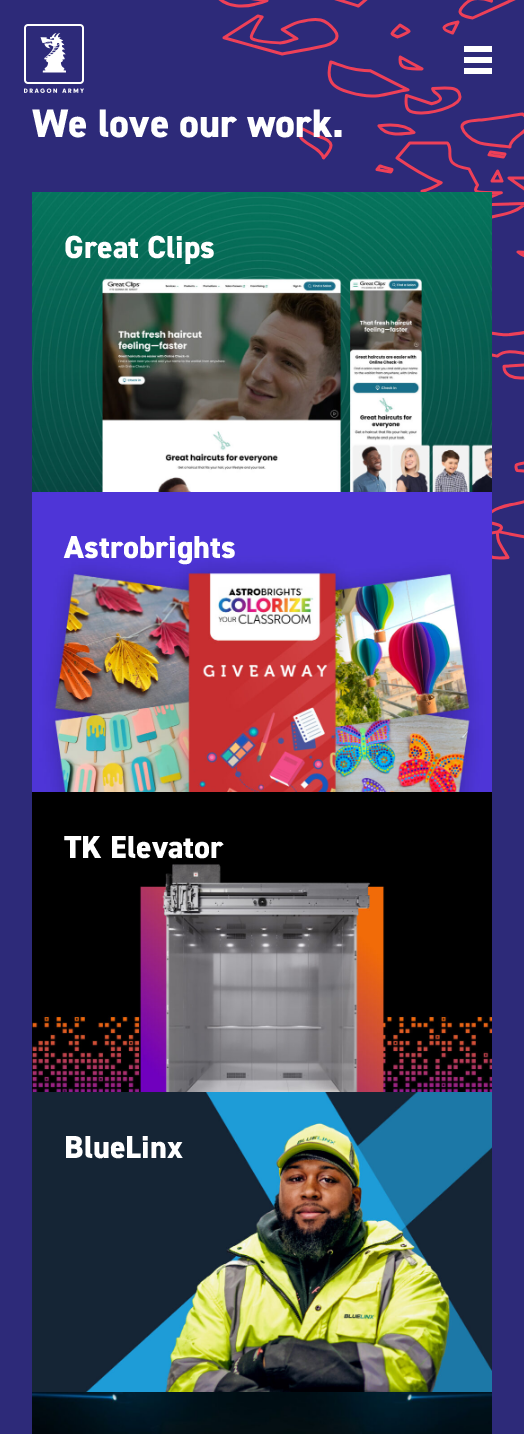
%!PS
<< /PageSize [524 1434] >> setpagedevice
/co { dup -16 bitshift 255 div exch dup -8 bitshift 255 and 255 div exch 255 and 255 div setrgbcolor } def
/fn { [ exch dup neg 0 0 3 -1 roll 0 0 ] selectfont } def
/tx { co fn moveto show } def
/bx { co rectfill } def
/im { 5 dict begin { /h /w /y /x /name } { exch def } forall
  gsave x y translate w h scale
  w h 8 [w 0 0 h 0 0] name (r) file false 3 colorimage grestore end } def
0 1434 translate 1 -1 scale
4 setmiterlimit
0 0 524 1434 16#2D2A79 bx
(media/1.raw) 24 24 60 69 im
(media/2.raw) 218 0 306 560 im
464 46 28 6 16#FFFFFF bx
464 57 28 6 16#FFFFFF bx
464 68 28 6 16#FFFFFF bx
(media/3.raw) 32 192 460 300 im
(media/4.raw) 32 492 460 300 im
(media/5.raw) 32 792 460 300 im
(media/6.raw) 32 1092 460 300 im
(media/7.raw) 32 1392 460 42 im
(We love our work.) 32 137 /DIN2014-ExtraBold 40 16#FFFFFF tx
(Great Clips) 64 258 /DIN2014-ExtraBold 32 16#FFFFFF tx
(Astrobrights) 64 558 /DIN2014-ExtraBold 32 16#FFFFFF tx
(TK Elevator) 64 858 /DIN2014-ExtraBold 32 16#FFFFFF tx
(BlueLinx) 64 1158 /DIN2014-ExtraBold 32 16#FFFFFF tx
showpage
